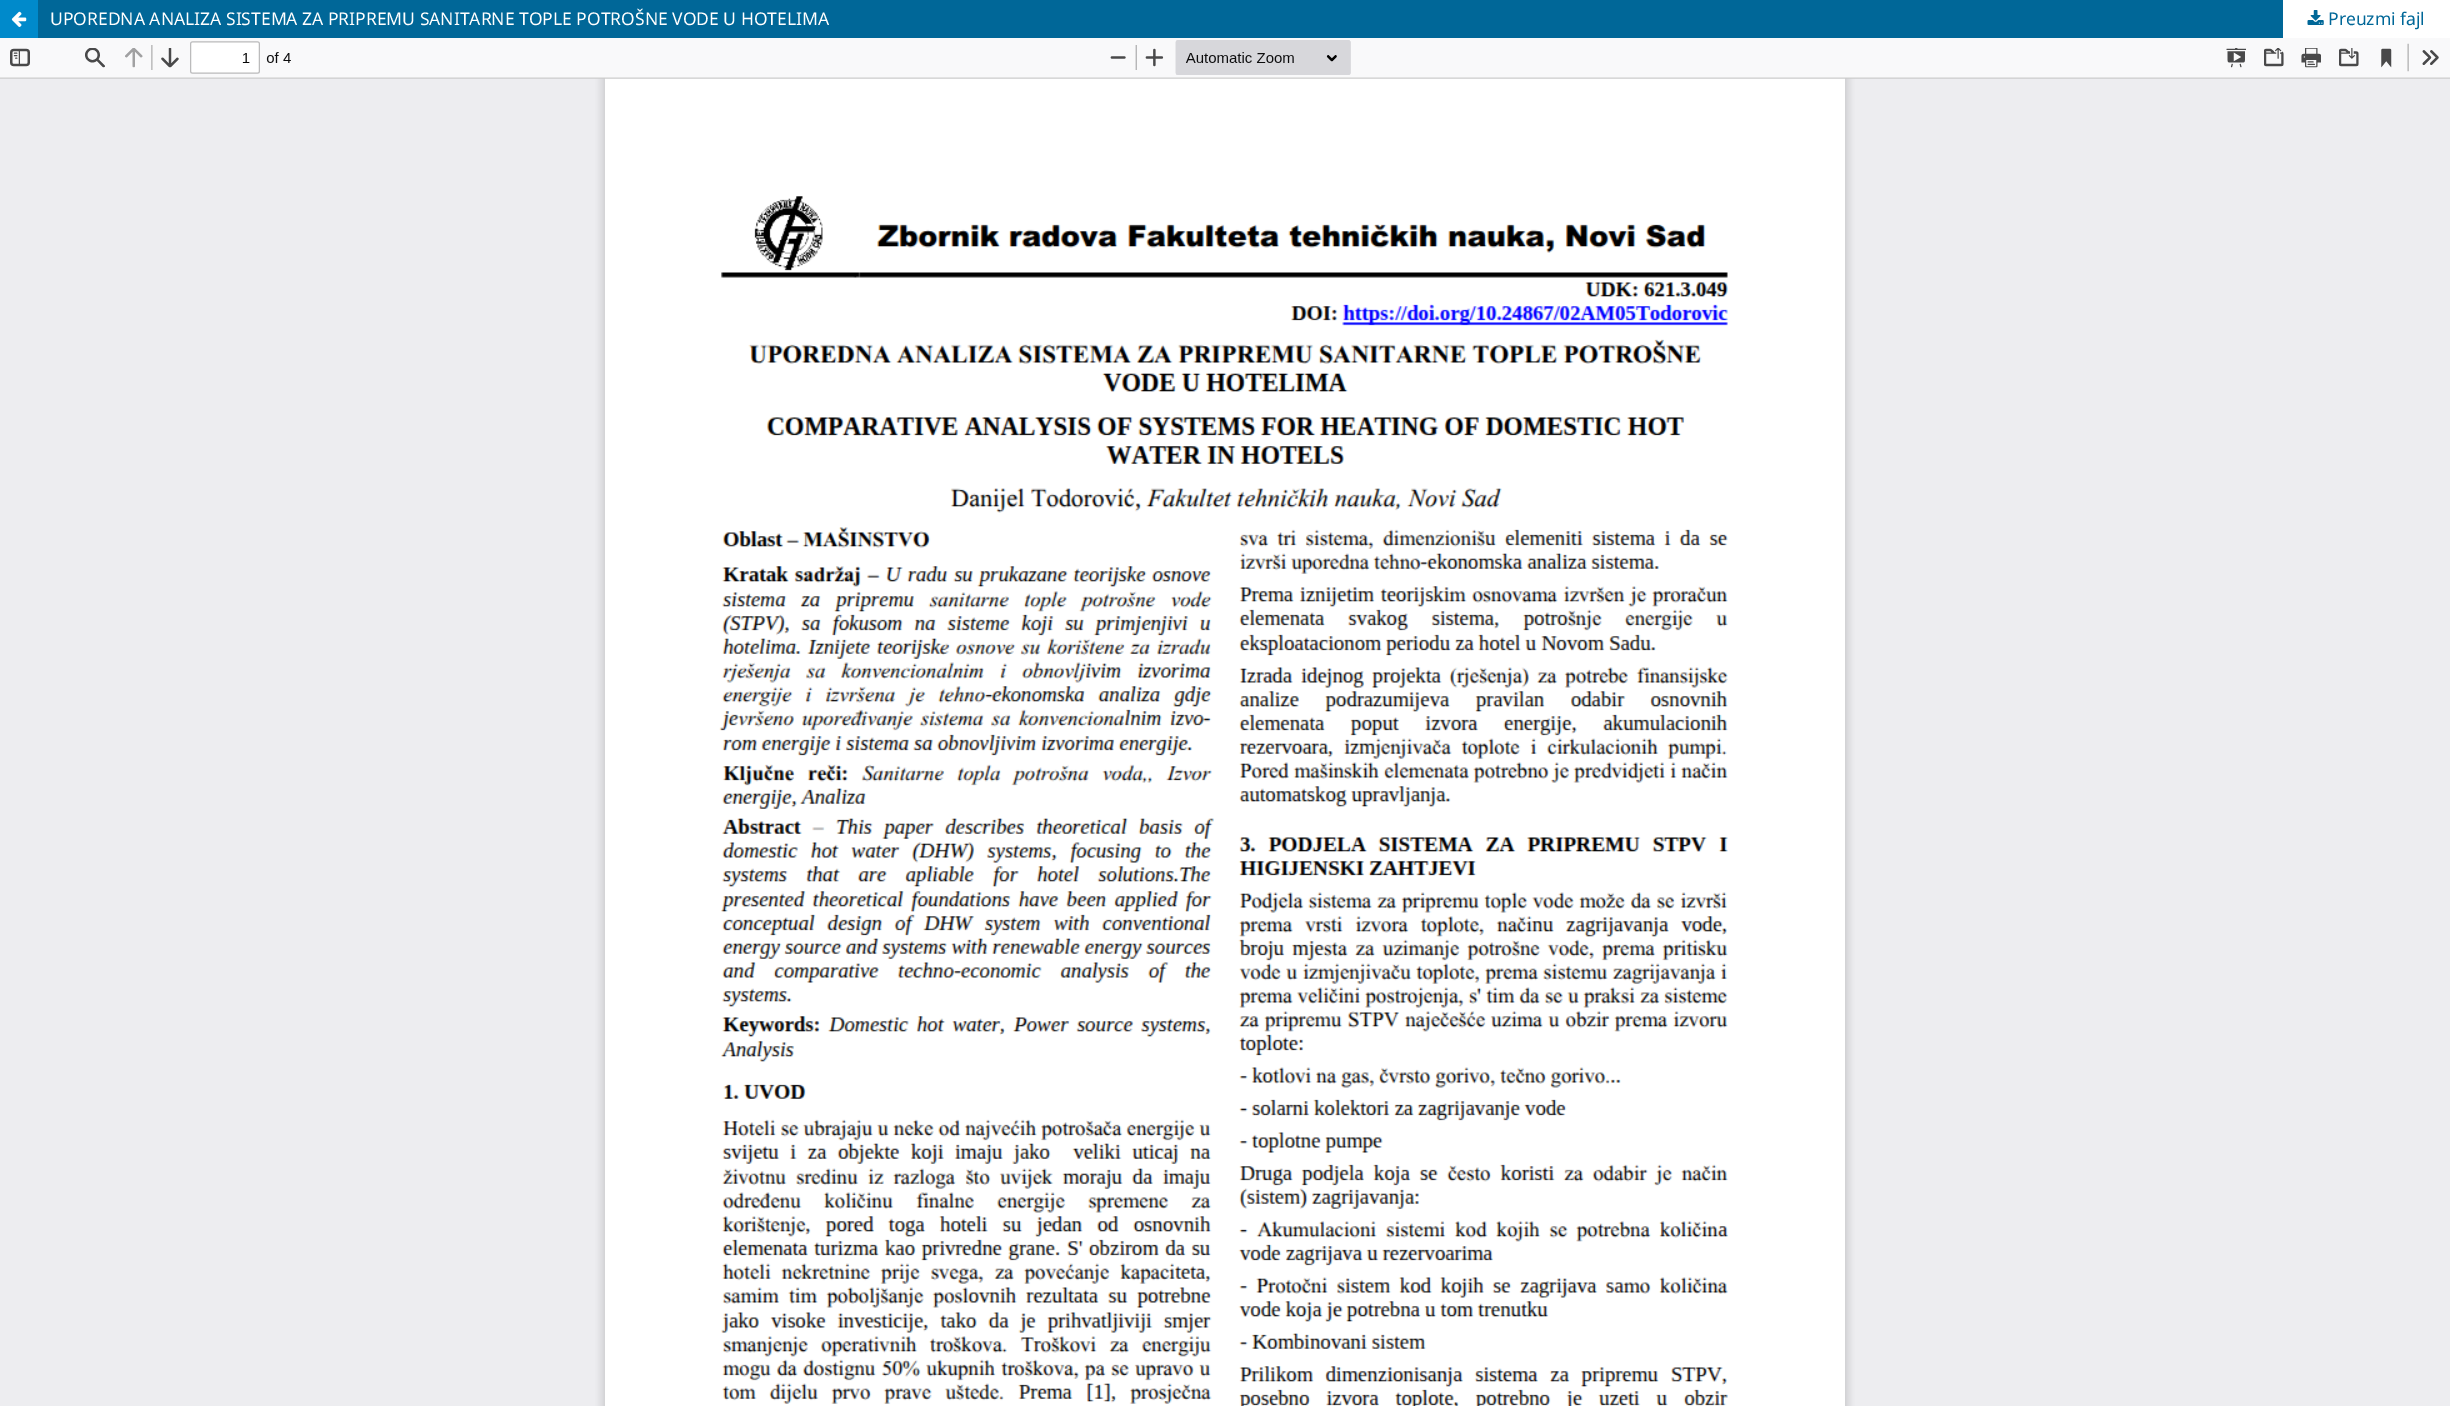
%!PS
<< /PageSize [2450 1406] >> setpagedevice
/co { dup -16 bitshift 255 div exch dup -8 bitshift 255 and 255 div exch 255 and 255 div setrgbcolor } def
/fn { [ exch dup neg 0 0 3 -1 roll 0 0 ] selectfont } def
/tx { co fn moveto show } def
/bx { co rectfill } def
/im { 5 dict begin { /h /w /y /x /name } { exch def } forall
  gsave x y translate w h scale
  w h 8 [w 0 0 h 0 0] name (r) file false 3 colorimage grestore end } def
0 1406 translate 1 -1 scale
4 setmiterlimit
0 0 2450 1406 16#FFFFFF bx
38 0 2245 38 16#006798 bx
0 0 38 38 16#008ACB bx
(media/1.raw) 11 11 16 16 im
(media/2.raw) 2307 10 17 15 im
(media/3.raw) 0 38 2450 1368 im
(UPOREDNA ANALIZA SISTEMA ZA PRIPREMU SANITARNE TOPLE POTROŠNE VODE U HOTELIMA) 50 25 /NotoSans-Regular 17.5 16#FFFFFF tx
(Preuzmi fajl) 2328 25 /NotoSans-Regular 17.5 16#006798 tx
showpage
